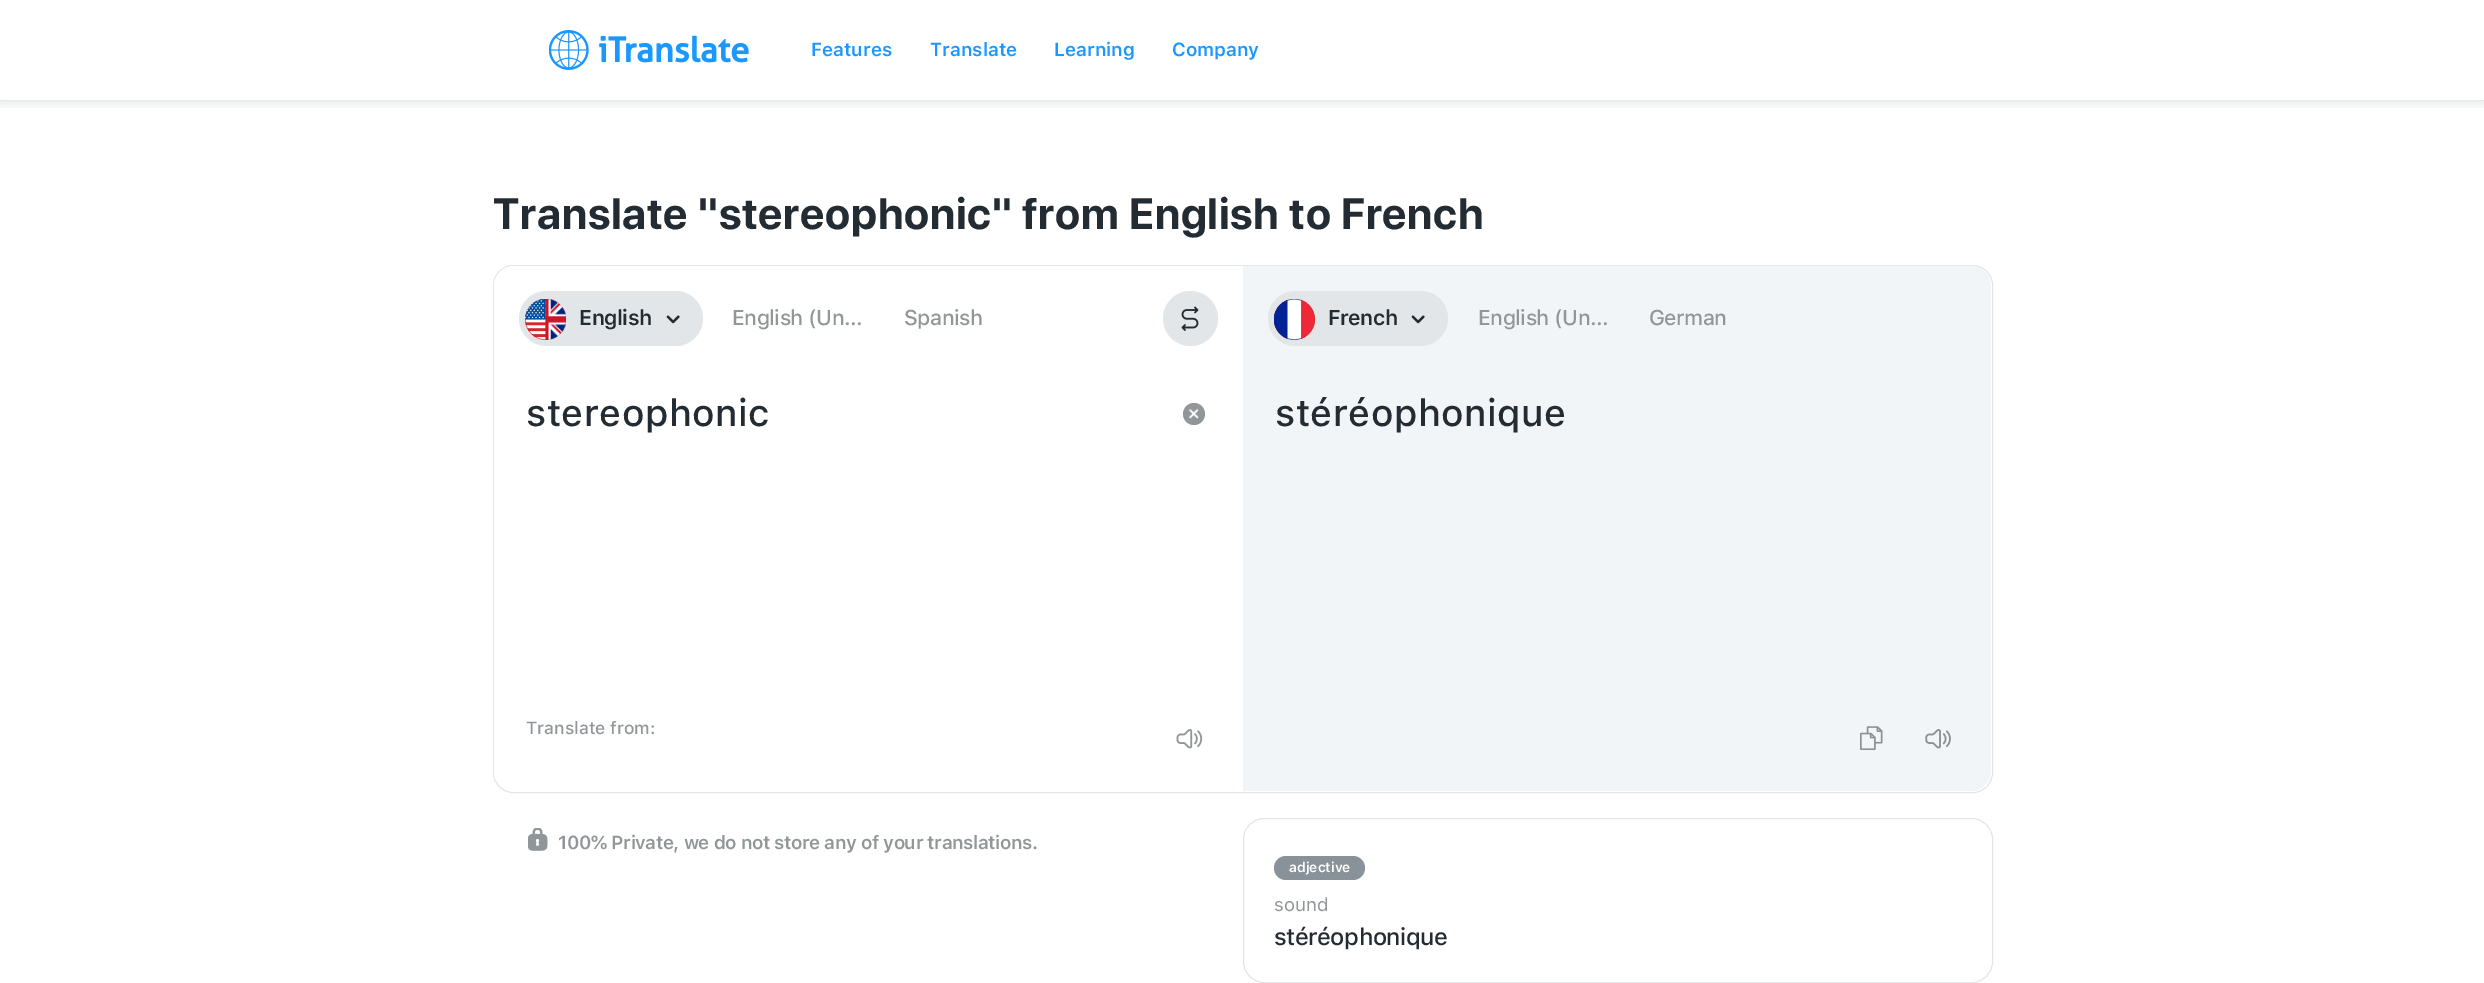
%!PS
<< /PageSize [2484 983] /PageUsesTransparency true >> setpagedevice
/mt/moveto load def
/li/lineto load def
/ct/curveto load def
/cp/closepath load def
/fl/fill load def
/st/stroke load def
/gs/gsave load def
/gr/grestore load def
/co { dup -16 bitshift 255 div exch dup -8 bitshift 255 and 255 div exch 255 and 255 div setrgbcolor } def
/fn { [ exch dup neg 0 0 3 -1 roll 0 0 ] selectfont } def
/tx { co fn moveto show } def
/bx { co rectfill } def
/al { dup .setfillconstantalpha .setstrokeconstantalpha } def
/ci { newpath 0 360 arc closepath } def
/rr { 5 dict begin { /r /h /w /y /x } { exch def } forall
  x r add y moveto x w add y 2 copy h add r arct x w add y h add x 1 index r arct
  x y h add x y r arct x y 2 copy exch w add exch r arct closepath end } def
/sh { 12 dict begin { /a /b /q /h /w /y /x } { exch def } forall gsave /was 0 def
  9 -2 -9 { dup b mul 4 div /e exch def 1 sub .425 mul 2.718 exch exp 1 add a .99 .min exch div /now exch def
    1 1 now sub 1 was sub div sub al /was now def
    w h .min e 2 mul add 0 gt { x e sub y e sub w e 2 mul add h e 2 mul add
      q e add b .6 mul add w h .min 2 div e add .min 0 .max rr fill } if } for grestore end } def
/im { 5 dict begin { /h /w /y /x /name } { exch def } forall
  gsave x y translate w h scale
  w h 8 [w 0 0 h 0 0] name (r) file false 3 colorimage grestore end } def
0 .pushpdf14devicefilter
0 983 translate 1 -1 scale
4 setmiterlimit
0 0 2484 983 16#FFFFFF bx
gs
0 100 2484 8 rectclip
16#242C33 co
0 0 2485 100 0 6 .2 sh
gr
(media/1.raw) 549 30 200 40 im
16#E3E6E8 co
493.5 265.5 1499 527 19.5 rr st
16#FFFFFF co
514 266 mt 1243 266 li 1243 791 li 514 791 li 503 791 494 782 494 771 ct 494 286 li 494 275 503 266 514 266 ct cp fl
16#E3E6E8 co
519 291 184 55 27.5 rr fl
(media/2.raw) 525 299 41 41 im
(media/3.raw) 666 315 14 9 im
1190.5 318.5 27.5 ci fl
(media/4.raw) 1181 306 18 25 im
16#919699 co
1194 414 11 ci fl
(media/5.raw) 1188 408 11 11 im
(media/6.raw) 1176 729 27 20 im
16#F2F5F7 co
1243 266 mt 1971 266 li 1982 266 1991 275 1991 286 ct 1991 771 li 1991 782 1982 791 1971 791 ct 1243 791 li cp fl
16#E3E6E8 co
1268 291 180 55 27.5 rr fl
(media/7.raw) 1274 299 41 41 im
(media/3.raw) 1411 315 14 9 im
(media/8.raw) 1860 726 23 24 im
(media/9.raw) 1925 729 26 20 im
(media/10.raw) 528 828 20 23 im
1243.5 818.5 749 164 20.5 rr st
16#8A9299 co
1274 856 91 24 12 rr fl
(Features) 811 56 /SFProText-SemiBold 18.75 16#1A98FF tx
(Translate) 930 56 /SFProText-SemiBold 18.75 16#1A98FF tx
(Learning) 1054 56 /SFProText-SemiBold 18.75 16#1A98FF tx
(Company) 1172 56 /SFProText-SemiBold 18.75 16#1A98FF tx
/SFProDisplay-Bold 43.75 fn
16#242C33 co
493 229 mt .8 0 (Translate "stereophonic" from English to French) ashow
/SFProText-SemiBold 21.25 fn
579 325 mt -.5 0 (English) ashow
/SFProText-Medium 21.25 fn
16#919699 co
732 325 mt -.5 0 (English \(Un...) ashow
904 325 mt -.5 0 (Spanish) ashow
/SFProText-Medium 37.5 fn
16#242C33 co
526 426 mt .5 0 (stereophonic) ashow
(Translate from:) 526 734 /SFProText-Medium 17.5 16#919699 tx
/SFProText-SemiBold 21.25 fn
16#242C33 co
1328 325 mt -.5 0 (French) ashow
/SFProText-Medium 21.25 fn
16#919699 co
1478 325 mt -.5 0 (English \(Un...) ashow
1649 325 mt -.5 0 (German) ashow
/SFProText-Medium 37.5 fn
16#242C33 co
1275 426 mt .5 0 (stéréophonique) ashow
/SFProText-SemiBold 18.75 fn
16#919699 co
558 849 mt -.45 0 (100% Private, we do not store any of your translations.) ashow
(adjective) 1289 872 /SFProText-SemiBold 13.75 16#FFFFFF tx
(sound) 1274 911 /SFProText-Regular 18.75 16#919699 tx
/SFProText-Medium 23.75 fn
16#242C33 co
1274 945 mt -.5 0 (stéréophonique) ashow
.poppdf14devicefilter showpage
